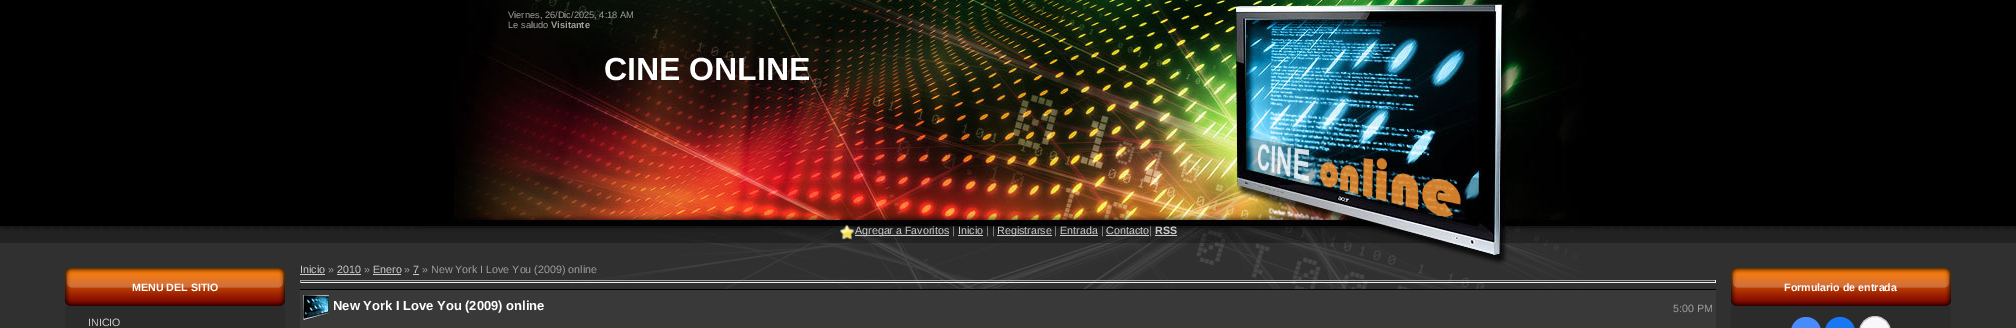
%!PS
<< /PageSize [2016 328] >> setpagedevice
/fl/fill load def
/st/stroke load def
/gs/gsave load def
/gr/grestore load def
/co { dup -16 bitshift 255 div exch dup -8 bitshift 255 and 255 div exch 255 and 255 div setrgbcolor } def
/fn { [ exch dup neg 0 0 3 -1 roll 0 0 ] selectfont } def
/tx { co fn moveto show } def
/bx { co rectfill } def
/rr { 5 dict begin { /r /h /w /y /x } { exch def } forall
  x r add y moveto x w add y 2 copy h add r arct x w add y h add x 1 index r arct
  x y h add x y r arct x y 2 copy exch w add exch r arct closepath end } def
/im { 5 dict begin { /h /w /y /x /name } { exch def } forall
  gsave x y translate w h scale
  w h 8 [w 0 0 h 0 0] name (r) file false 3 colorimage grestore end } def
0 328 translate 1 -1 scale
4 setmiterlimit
0 0 2016 328 16#303030 bx
(media/1.raw) 0 0 2016 243 im
(media/2.raw) 420 0 1172 243 im
(media/3.raw) 840 224 15 16 im
855 235 94 1 16#CCCCCC bx
958 235 25 1 16#CCCCCC bx
997 235 55 1 16#CCCCCC bx
1060 235 38 1 16#CCCCCC bx
1106 235 43 1 16#CCCCCC bx
1155 235 22 1 16#CCCCCC bx
(media/4.raw) 570 243 1012 46 im
(media/5.raw) 65 268 220 38 im
65 306 220 22 16#2B2B2B bx
300 274 25 1 16#CCCCCC bx
337 274 24 1 16#CCCCCC bx
373 274 28 1 16#CCCCCC bx
413 274 6 1 16#CCCCCC bx
300 280 1416 1 16#9F9F9F bx
1715 280 1 3 16#EEEEEE bx
300 282 1416 1 16#EEEEEE bx
300 280 1 3 16#9F9F9F bx
300 290 1416 38 16#393939 bx
300 289 1416 1 16#000000 bx
(media/6.raw) 303 295 26 25 im
(media/5.raw) 1731 268 220 38 im
1731 306 220 22 16#2B2B2B bx
16#498BFA co
1791 317 30 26 15 rr fl
16#1877F2 co
1825 317 30 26 15 rr fl
16#F8F8FC co
1859.5 316.5 31 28 15.5 rr gs fl gr
16#C4C4C4 co
st
(Viernes, 26/Dic/2025, 4:18 AM) 508 18 /LiberationSans-Regular 9.3 16#9F9F9F tx
(Le saludo) 508 28 /LiberationSans-Regular 9.3 16#9F9F9F tx
(Visitante) 551 28 /LiberationSans-Bold 9.3 16#9F9F9F tx
(CINE ONLINE) 604 80 /LiberationSans-Bold 32 16#FFFFFF tx
(Agregar a Favoritos) 855 234 /LiberationSans-Regular 10.7 16#CCCCCC tx
(|) 952 234 /LiberationSans-Regular 10.7 16#9F9F9F tx
(Inicio) 958 234 /LiberationSans-Regular 10.7 16#CCCCCC tx
(| |) 986 234 /LiberationSans-Regular 10.7 16#9F9F9F tx
(Registrarse) 997 234 /LiberationSans-Regular 10.7 16#CCCCCC tx
(|) 1054 234 /LiberationSans-Regular 10.7 16#9F9F9F tx
(Entrada) 1060 234 /LiberationSans-Regular 10.7 16#CCCCCC tx
(|) 1101 234 /LiberationSans-Regular 10.7 16#9F9F9F tx
(Contacto) 1106 234 /LiberationSans-Regular 10.7 16#CCCCCC tx
(|) 1149 234 /LiberationSans-Regular 10.7 16#9F9F9F tx
(RSS) 1155 234 /LiberationSans-Bold 10.7 16#CCCCCC tx
(MENU DEL SITIO) 132 291 /LiberationSans-Bold 10.7 16#FFFFFF tx
(INICIO) 88 326 /LiberationSans-Regular 10.7 16#CCCCCC tx
(Inicio) 300 273 /LiberationSans-Regular 10.7 16#CCCCCC tx
(») 328 273 /LiberationSans-Regular 10.7 16#9F9F9F tx
(2010) 337 273 /LiberationSans-Regular 10.7 16#CCCCCC tx
(») 364 273 /LiberationSans-Regular 10.7 16#9F9F9F tx
(Enero) 373 273 /LiberationSans-Regular 10.7 16#CCCCCC tx
(») 404 273 /LiberationSans-Regular 10.7 16#9F9F9F tx
(7) 413 273 /LiberationSans-Regular 10.7 16#CCCCCC tx
(» New York I Love You \(2009\) online) 422 273 /LiberationSans-Regular 10.7 16#9F9F9F tx
(New York I Love You \(2009\) online) 333 310 /LiberationSans-Bold 13 16#FFFFFF tx
(5:00 PM) 1673 312 /LiberationSans-Regular 10.7 16#9F9F9F tx
(Formulario de entrada) 1784 291 /LiberationSans-Bold 10.7 16#FFFFFF tx
showpage
